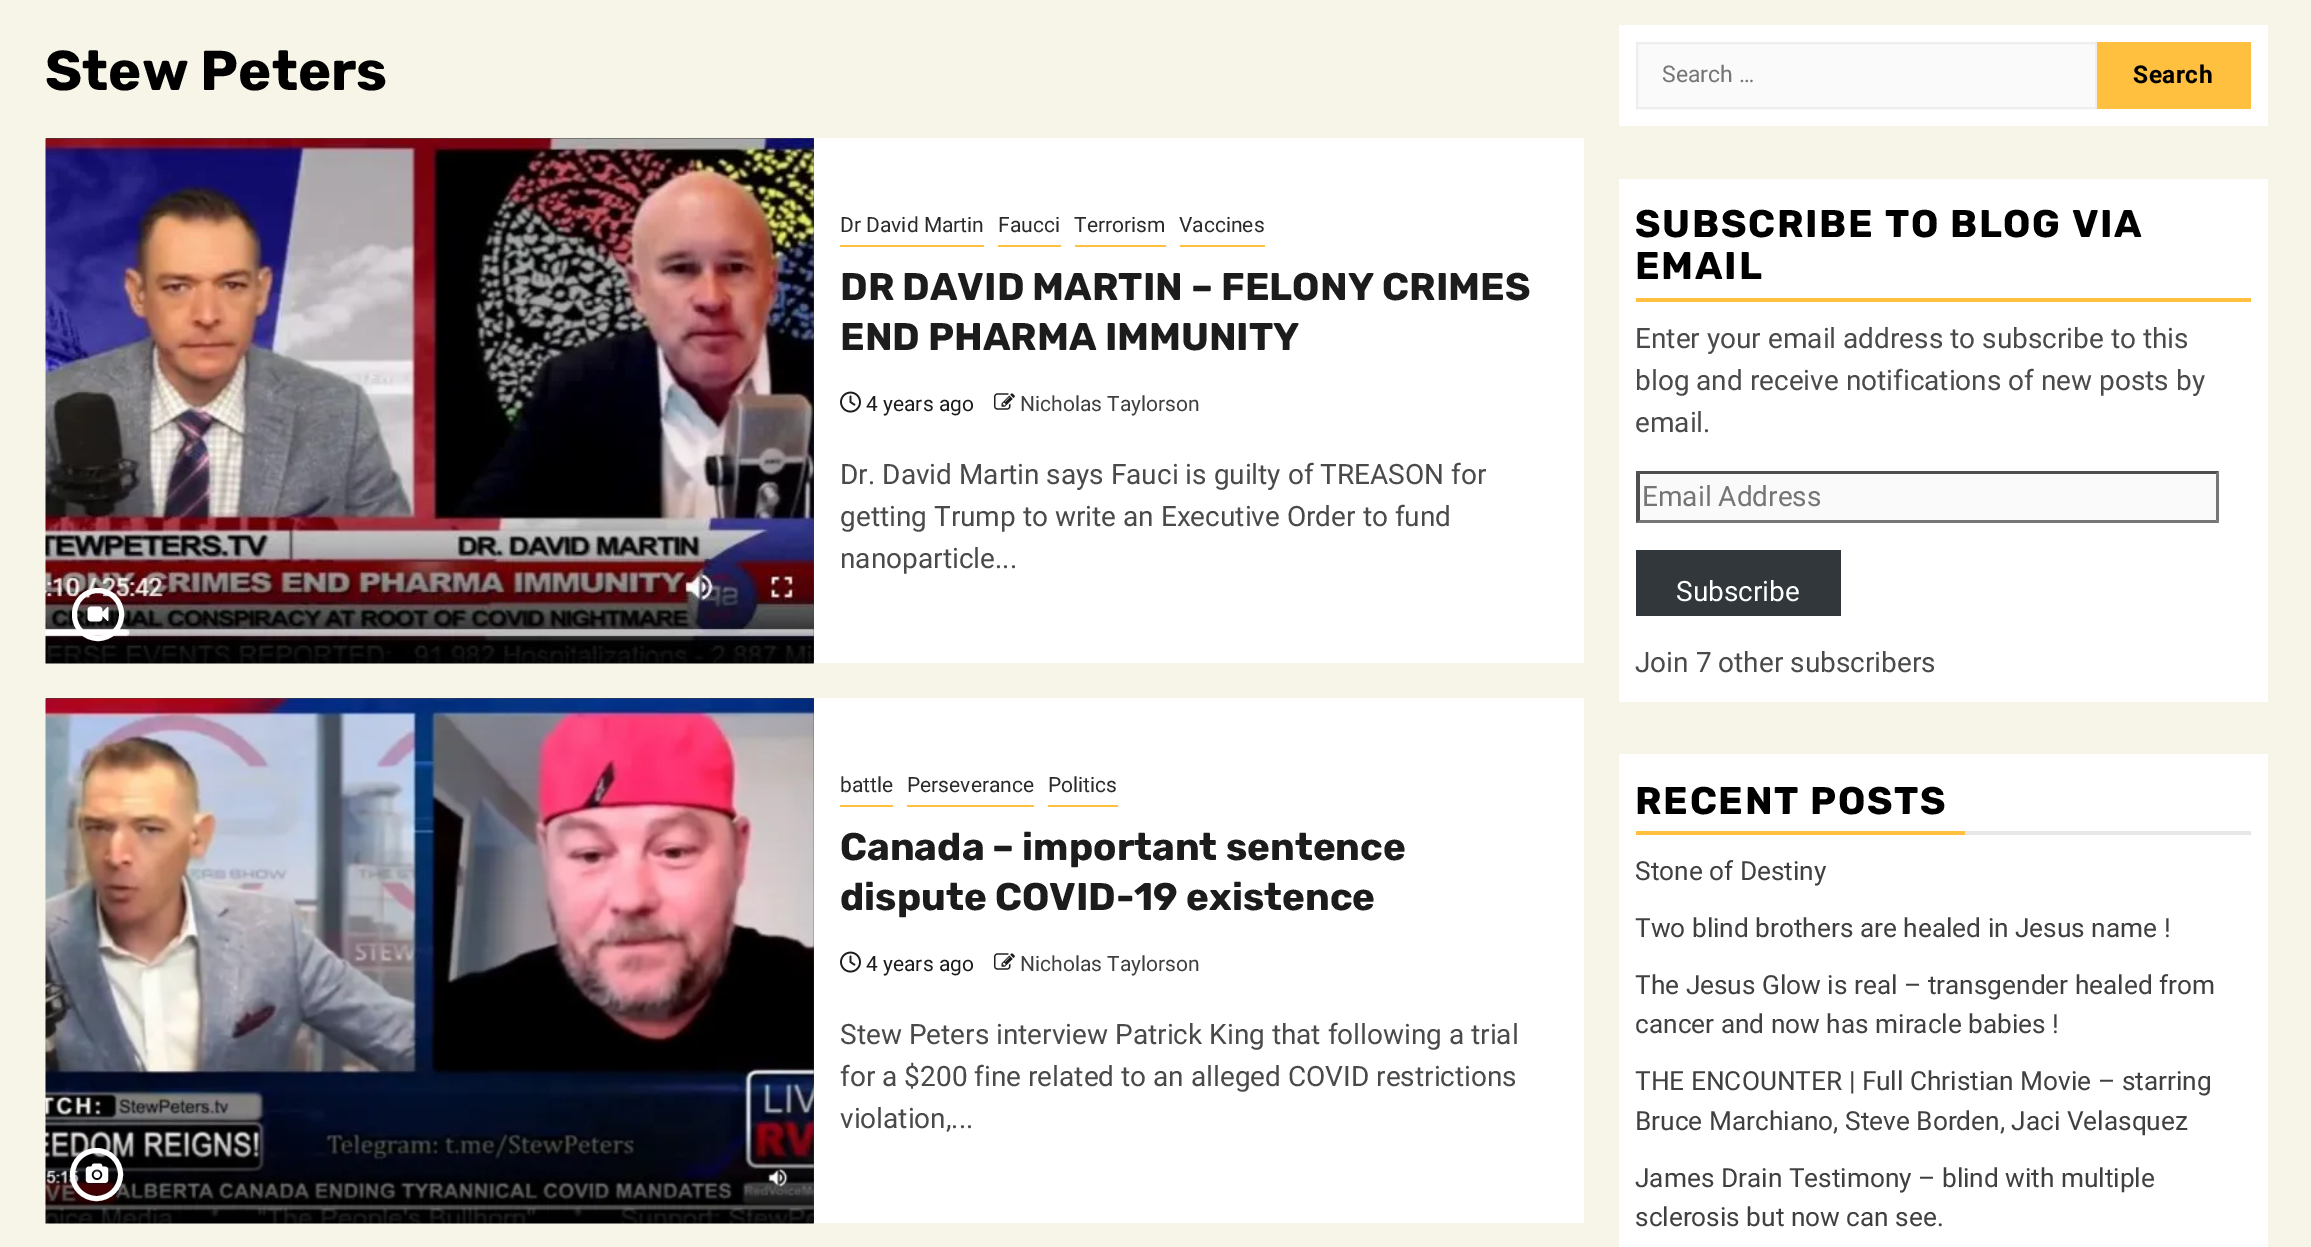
%!PS
<< /PageSize [2311 1247] >> setpagedevice
/mt/moveto load def
/li/lineto load def
/cp/closepath load def
/fl/fill load def
/st/stroke load def
/gs/gsave load def
/gr/grestore load def
/lw/setlinewidth load def
/co { dup -16 bitshift 255 div exch dup -8 bitshift 255 and 255 div exch 255 and 255 div setrgbcolor } def
/fn { [ exch dup neg 0 0 3 -1 roll 0 0 ] selectfont } def
/tx { co fn moveto show } def
/bx { co rectfill } def
/ci { newpath 0 360 arc closepath } def
/rr { 5 dict begin { /r /h /w /y /x } { exch def } forall
  x r add y moveto x w add y 2 copy h add r arct x w add y h add x 1 index r arct
  x y h add x y r arct x y 2 copy exch w add exch r arct closepath end } def
/im { 5 dict begin { /h /w /y /x /name } { exch def } forall
  gsave x y translate w h scale
  w h 8 [w 0 0 h 0 0] name (r) file false 3 colorimage grestore end } def
0 1247 translate 1 -1 scale
4 setmiterlimit
0 0 2311 1247 16#F7F5E8 bx
814 138 770 525 16#FFFFFF bx
46 138 768 525 16#404040 bx
(media/1.raw) 45 138 769 526 im
(media/2.raw) 87 606 22 16 im
16#FFFFFF co
5 lw
74.5 590.5 47 48 23.5 rr st
840 245 144 2 16#FFBF3F bx
998 245 63 2 16#FFBF3F bx
1075 245 91 2 16#FFBF3F bx
1180 245 85 2 16#FFBF3F bx
(media/3.raw) 840 391 21 22 im
(media/4.raw) 994 393 21 17 im
814 698 770 525 16#FFFFFF bx
46 698 768 525 16#404040 bx
(media/5.raw) 45 698 769 526 im
(media/6.raw) 85 1163 24 20 im
16#FFFFFF co
96.5 1174.5 24 ci st
840 805 53 2 16#FFBF3F bx
907 805 127 2 16#FFBF3F bx
1048 805 70 2 16#FFBF3F bx
(media/3.raw) 840 951 21 22 im
(media/4.raw) 994 953 21 17 im
1619 25 649 101 16#FFFFFF bx
16#FAFAFA co
1637 43 mt 2096 43 li 2096 108 li 1637 108 li cp gs fl gr
16#EEEEEE co
2 lw
st
2097 42 154 67 16#FFBF3F bx
1619 179 649 523 16#FFFFFF bx
1636 298 615 4 16#FFBF3F bx
1636 471 583 52 16#FAFAFA bx
16#4F4F4F co
1636 471 mt 2219 471 li 2216 474 li 1640 474 li cp fl
16#767676 co
2219 471 mt 2219 523 li 2216 520 li 2216 474 li cp fl
2219 523 mt 1636 523 li 1640 520 li 2216 520 li cp fl
16#4F4F4F co
1636 523 mt 1636 471 li 1640 474 li 1640 520 li cp fl
1636 550 205 66 16#32373C bx
1619 754 649 493 16#FFFFFF bx
1636 831 329 4 16#FFBF3F bx
1965 831 286 4 16#E7E7E7 bx
(Stew Peters) 45 90 /Rubik-Bold 56 16#000000 tx
(Dr David Martin) 840 232 /Roboto-Regular 21 16#2B2B2B tx
(Faucci) 998 232 /Roboto-Regular 21 16#2B2B2B tx
(Terrorism) 1074 232 /Roboto-Regular 21 16#2B2B2B tx
(Vaccines) 1179 232 /Roboto-Regular 21 16#2B2B2B tx
(DR DAVID MARTIN – FELONY CRIMES) 840 300 /Rubik-Bold 38.5 16#1C1C1C tx
(END PHARMA IMMUNITY) 840 350 /Rubik-Bold 38.5 16#1C1C1C tx
(4 years ago) 866 411 /Roboto-Regular 21 16#1C1C1C tx
(Nicholas Taylorson) 1020 411 /Roboto-Regular 21 16#404040 tx
(Dr. David Martin says Fauci is guilty of TREASON for) 840 484 /Roboto-Regular 28 16#4A4A4A tx
(getting Trump to write an Executive Order to fund) 840 526 /Roboto-Regular 28 16#4A4A4A tx
(nanoparticle...) 840 568 /Roboto-Regular 28 16#4A4A4A tx
(battle) 840 792 /Roboto-Regular 21 16#2B2B2B tx
(Perseverance) 907 792 /Roboto-Regular 21 16#2B2B2B tx
(Politics) 1048 792 /Roboto-Regular 21 16#2B2B2B tx
(Canada – important sentence) 840 860 /Rubik-Bold 38.5 16#1C1C1C tx
(dispute COVID-19 existence) 840 910 /Rubik-Bold 38.5 16#1C1C1C tx
(4 years ago) 866 971 /Roboto-Regular 21 16#1C1C1C tx
(Nicholas Taylorson) 1020 971 /Roboto-Regular 21 16#404040 tx
(Stew Peters interview Patrick King that following a trial) 840 1044 /Roboto-Regular 28 16#4A4A4A tx
(for a $200 fine related to an alleged COVID restrictions) 840 1086 /Roboto-Regular 28 16#4A4A4A tx
(violation,...) 840 1128 /Roboto-Regular 28 16#4A4A4A tx
(Search …) 1662 82 /Roboto-Regular 23 16#757575 tx
/Roboto-Bold 24.5 fn
16#000000 co
2133 83 mt .5 0 (Search) ashow
/Rubik-Bold 38.5 fn
1635 237 mt 1.75 0 (SUBSCRIBE TO BLOG VIA) ashow
1635 279 mt 1.75 0 (EMAIL) ashow
(Enter your email address to subscribe to this) 1635 348 /Roboto-Regular 28 16#4A4A4A tx
(blog and receive notifications of new posts by) 1635 390 /Roboto-Regular 28 16#4A4A4A tx
(email.) 1635 432 /Roboto-Regular 28 16#4A4A4A tx
(Email Address) 1642 506 /Roboto-Regular 28 16#757575 tx
(Subscribe) 1676 601 /Roboto-Regular 28 16#FFFFFF tx
(Join 7 other subscribers) 1635 672 /Roboto-Regular 28 16#4A4A4A tx
/Rubik-Bold 38.5 fn
16#000000 co
1635 814 mt 1.75 0 (RECENT POSTS) ashow
(Stone of Destiny) 1635 880 /Roboto-Regular 26.25 16#404040 tx
(Two blind brothers are healed in Jesus name !) 1635 937 /Roboto-Regular 26.25 16#404040 tx
(The Jesus Glow is real – transgender healed from) 1635 994 /Roboto-Regular 26.25 16#404040 tx
(cancer and now has miracle babies !) 1635 1033 /Roboto-Regular 26.25 16#404040 tx
(THE ENCOUNTER | Full Christian Movie – starring) 1635 1090 /Roboto-Regular 26.25 16#404040 tx
(Bruce Marchiano, Steve Borden, Jaci Velasquez) 1635 1130 /Roboto-Regular 26.25 16#404040 tx
(James Drain Testimony – blind with multiple) 1635 1187 /Roboto-Regular 26.25 16#404040 tx
(sclerosis but now can see.) 1635 1226 /Roboto-Regular 26.25 16#404040 tx
showpage
